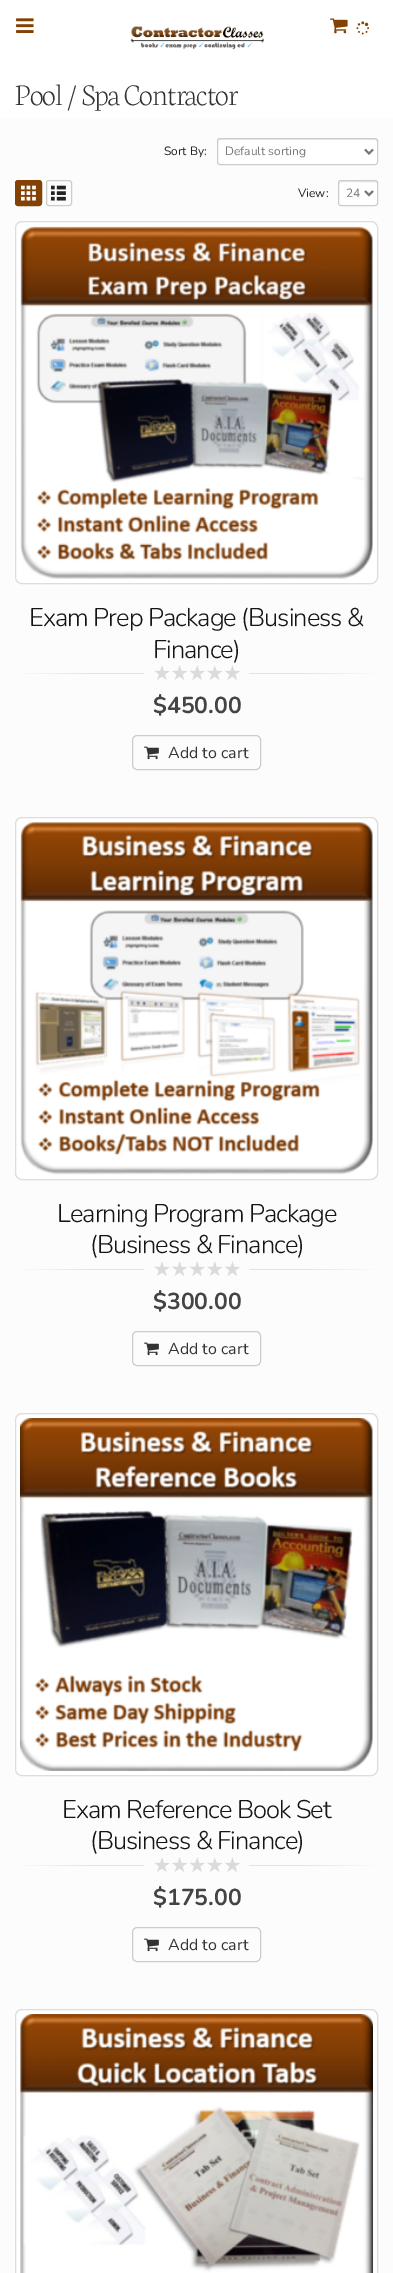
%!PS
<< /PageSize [393 2273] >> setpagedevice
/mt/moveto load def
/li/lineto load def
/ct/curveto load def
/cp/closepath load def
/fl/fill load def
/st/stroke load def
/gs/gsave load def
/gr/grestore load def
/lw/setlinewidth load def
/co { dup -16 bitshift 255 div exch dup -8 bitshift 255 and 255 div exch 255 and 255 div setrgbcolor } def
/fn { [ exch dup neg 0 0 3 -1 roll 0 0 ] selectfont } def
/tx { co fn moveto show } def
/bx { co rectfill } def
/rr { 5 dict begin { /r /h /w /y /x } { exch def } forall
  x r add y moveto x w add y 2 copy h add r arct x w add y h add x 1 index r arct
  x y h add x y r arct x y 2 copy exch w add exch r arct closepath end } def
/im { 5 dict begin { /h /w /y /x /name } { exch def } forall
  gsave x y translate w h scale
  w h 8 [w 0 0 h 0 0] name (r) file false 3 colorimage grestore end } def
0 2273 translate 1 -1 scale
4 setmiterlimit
0 0 393 2273 16#FFFFFF bx
(media/1.raw) 16 18 18 15 im
(media/2.raw) 330 18 18 16 im
(media/3.raw) 356 21 13 14 im
(media/4.raw) 130 26 135 24 im
0 118 393 2155 16#FCFCFC bx
16#FFFFFF co
217 138 161 27 3 rr fl
16#ECECEC co
220 140 mt 375 140 li 376 140 377 141 377 142 ct 377 141 377 139 375 139 ct 220 139 li 218 139 218 141 218 142 ct 218 141 219 140 220 140 ct cp fl
16#CCCCCC co
217.5 138.5 160 26 2.5 rr st
16#777777 co
2 lw
365 149.5 mt 369 153.5 li 373 149.5 li st
16#844104 co
15.5 180.5 26 25 2.5 rr gs fl gr
1 lw
st
(media/5.raw) 21 185 15 16 im
16#CCCCCC co
46.5 180.5 25 25 2.5 rr st
(media/6.raw) 51 185 15 16 im
16#FFFFFF co
338 180 40 26 3 rr fl
16#ECECEC co
341 182 mt 375.5 182.5 li 376 182.5 376.5 182.5 377 183.5 ct 377 179.5 371 181 369.5 181 ct 346.5 181 li 341.5 181 339 179.5 339 184.5 ct 339 183 340 182 341 182 ct cp 339 203.5 mt 339 203 li cp eofill
16#CCCCCC co
338.5 180.5 39 25 2.5 rr st
16#777777 co
2 lw
365 191 mt 369 195 li 373 191 li st
16#FFFFFF co
15.5 221.5 362 362 6.5 rr gs fl gr
16#DDDDDD co
1 lw
st
(media/7.raw) 20 226 353 353 im
gs 15 673 mt 144 673 li 144 674 li 15 674 li cp clip newpath
<< /ShadingType 2 /ColorSpace /DeviceRGB /Coords [144 674 15 674] /Extend [true true] /Function << /FunctionType 3 /Domain [0 1] /Functions [<< /FunctionType 2 /Domain [0 1] /C0 [.89 .89 .89] /C1 [.89 .89 .89] /N 1 >> << /FunctionType 2 /Domain [0 1] /C0 [.89 .89 .89] /C1 [.988 .988 .988] /N 1 >>] /Bounds [.4] /Encode [0 1 0 1] >> >> shfill gr
(media/8.raw) 154 665 86 15 im
gs 249 673 mt 378 673 li 378 674 li 249 674 li cp clip newpath
<< /ShadingType 2 /ColorSpace /DeviceRGB /Coords [249 674 378 674] /Extend [true true] /Function << /FunctionType 3 /Domain [0 1] /Functions [<< /FunctionType 2 /Domain [0 1] /C0 [.89 .89 .89] /C1 [.89 .89 .89] /N 1 >> << /FunctionType 2 /Domain [0 1] /C0 [.89 .89 .89] /C1 [.988 .988 .988] /N 1 >>] /Bounds [.4] /Encode [0 1 0 1] >> >> shfill gr
16#CCCCCC co
132.5 735.5 128 34 4.5 rr st
(media/9.raw) 144 746 15 14 im
16#FFFFFF co
15.5 817.5 362 362 6.5 rr gs fl gr
16#DDDDDD co
st
(media/10.raw) 20 822 353 353 im
gs 15 1269 mt 144 1269 li 144 1270 li 15 1270 li cp clip newpath
<< /ShadingType 2 /ColorSpace /DeviceRGB /Coords [144 1270 15 1270] /Extend [true true] /Function << /FunctionType 3 /Domain [0 1] /Functions [<< /FunctionType 2 /Domain [0 1] /C0 [.89 .89 .89] /C1 [.89 .89 .89] /N 1 >> << /FunctionType 2 /Domain [0 1] /C0 [.89 .89 .89] /C1 [.988 .988 .988] /N 1 >>] /Bounds [.4] /Encode [0 1 0 1] >> >> shfill gr
(media/8.raw) 154 1261 86 15 im
gs 249 1269 mt 378 1269 li 378 1270 li 249 1270 li cp clip newpath
<< /ShadingType 2 /ColorSpace /DeviceRGB /Coords [249 1270 378 1270] /Extend [true true] /Function << /FunctionType 3 /Domain [0 1] /Functions [<< /FunctionType 2 /Domain [0 1] /C0 [.89 .89 .89] /C1 [.89 .89 .89] /N 1 >> << /FunctionType 2 /Domain [0 1] /C0 [.89 .89 .89] /C1 [.988 .988 .988] /N 1 >>] /Bounds [.4] /Encode [0 1 0 1] >> >> shfill gr
16#CCCCCC co
132.5 1331.5 128 34 4.5 rr st
(media/9.raw) 144 1342 15 14 im
16#FFFFFF co
15.5 1413.5 362 362 6.5 rr gs fl gr
16#DDDDDD co
st
(media/11.raw) 20 1418 353 353 im
gs 15 1865 mt 144 1865 li 144 1866 li 15 1866 li cp clip newpath
<< /ShadingType 2 /ColorSpace /DeviceRGB /Coords [144 1866 15 1866] /Extend [true true] /Function << /FunctionType 3 /Domain [0 1] /Functions [<< /FunctionType 2 /Domain [0 1] /C0 [.89 .89 .89] /C1 [.89 .89 .89] /N 1 >> << /FunctionType 2 /Domain [0 1] /C0 [.89 .89 .89] /C1 [.988 .988 .988] /N 1 >>] /Bounds [.4] /Encode [0 1 0 1] >> >> shfill gr
(media/8.raw) 154 1857 86 15 im
gs 249 1865 mt 378 1865 li 378 1866 li 249 1866 li cp clip newpath
<< /ShadingType 2 /ColorSpace /DeviceRGB /Coords [249 1866 378 1866] /Extend [true true] /Function << /FunctionType 3 /Domain [0 1] /Functions [<< /FunctionType 2 /Domain [0 1] /C0 [.89 .89 .89] /C1 [.89 .89 .89] /N 1 >> << /FunctionType 2 /Domain [0 1] /C0 [.89 .89 .89] /C1 [.988 .988 .988] /N 1 >>] /Bounds [.4] /Encode [0 1 0 1] >> >> shfill gr
16#CCCCCC co
132.5 1927.5 128 34 4.5 rr st
(media/9.raw) 144 1938 15 14 im
16#FFFFFF co
15.5 2009.5 362 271 6.5 rr gs fl gr
16#DDDDDD co
st
(media/12.raw) 20 2014 353 259 im
/Neuton-ExtraLight 32 fn
16#333333 co
15 105 mt -1 0 (Pool / Spa Contractor) ashow
(Sort By:) 164 155 /Nunito-Regular 12 16#222222 tx
(Default sorting) 225 155 /Nunito-Regular 12 16#777777 tx
(View:) 298 197 /Nunito-Regular 12 16#222222 tx
(24) 346 197 /Nunito-Regular 12 16#777777 tx
/Nunito-Light 25.6 fn
16#151515 co
29 626 mt -1 0 (Exam Prep Package \(Business &) ashow
153 658 mt -1 0 (Finance\)) ashow
($450.00) 153 713 /Nunito-Bold 23 16#444444 tx
(Add to cart) 168 758 /Nunito-Regular 16 16#333333 tx
/Nunito-Light 25.6 fn
16#151515 co
57 1222 mt -1 0 (Learning Program Package) ashow
90 1253 mt -1 0 (\(Business & Finance\)) ashow
($300.00) 153 1309 /Nunito-Bold 23 16#444444 tx
(Add to cart) 168 1354 /Nunito-Regular 16 16#333333 tx
/Nunito-Light 25.6 fn
16#151515 co
62 1818 mt -1 0 (Exam Reference Book Set) ashow
90 1849 mt -1 0 (\(Business & Finance\)) ashow
($175.00) 153 1905 /Nunito-Bold 23 16#444444 tx
(Add to cart) 168 1950 /Nunito-Regular 16 16#333333 tx
showpage
